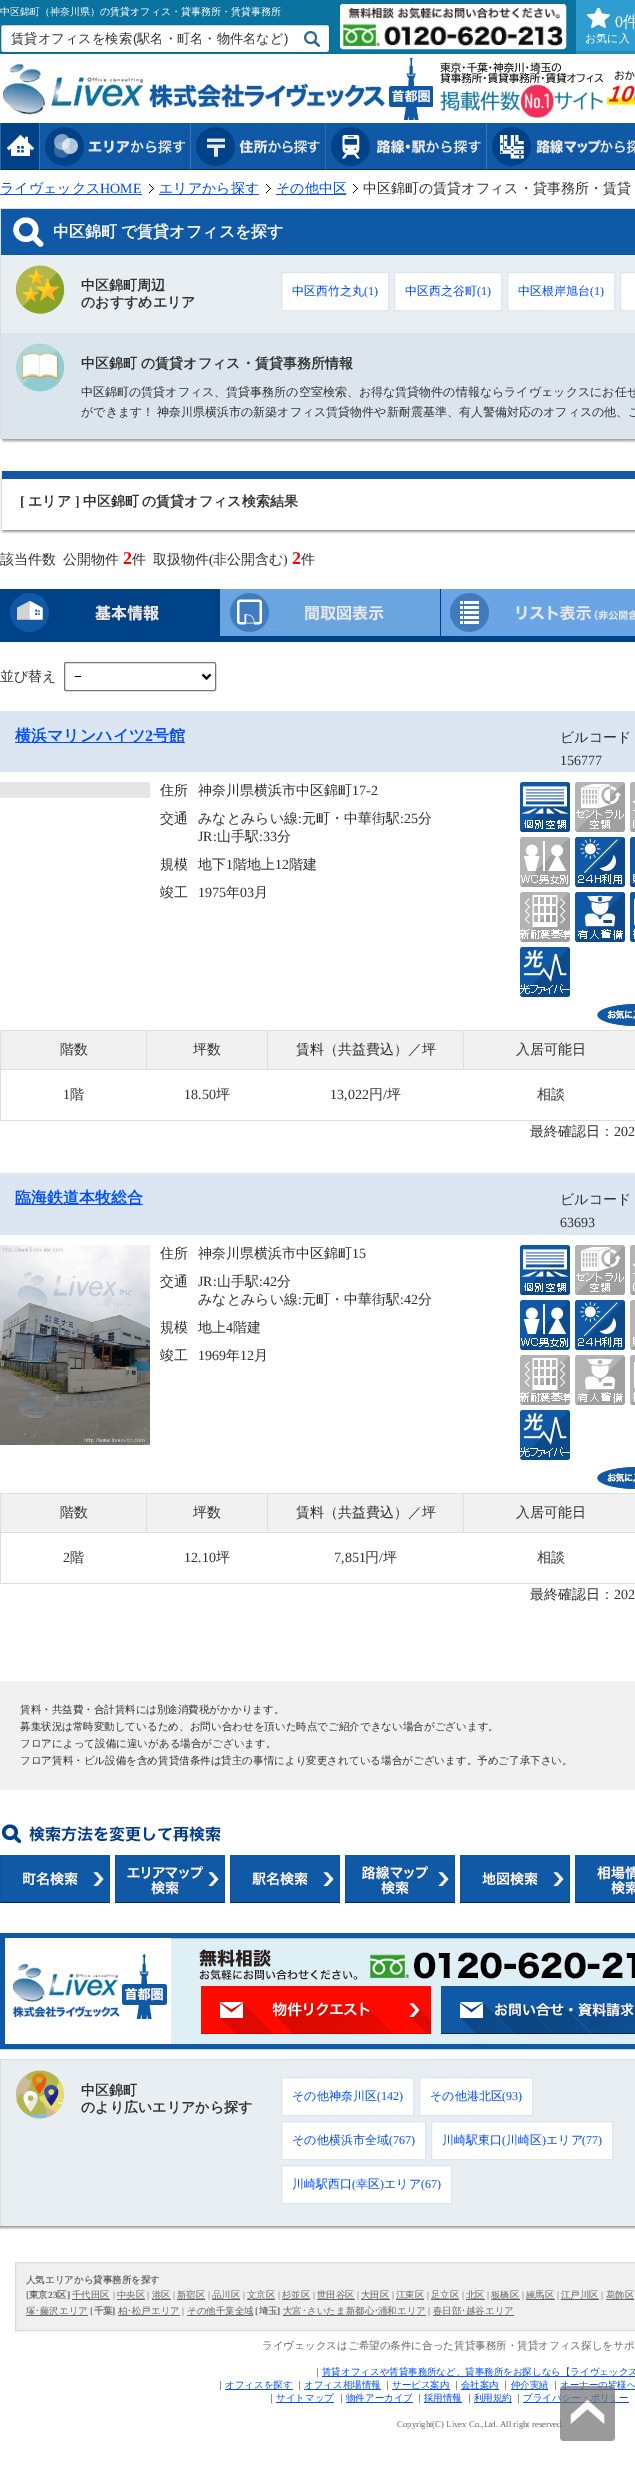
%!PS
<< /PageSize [635 2471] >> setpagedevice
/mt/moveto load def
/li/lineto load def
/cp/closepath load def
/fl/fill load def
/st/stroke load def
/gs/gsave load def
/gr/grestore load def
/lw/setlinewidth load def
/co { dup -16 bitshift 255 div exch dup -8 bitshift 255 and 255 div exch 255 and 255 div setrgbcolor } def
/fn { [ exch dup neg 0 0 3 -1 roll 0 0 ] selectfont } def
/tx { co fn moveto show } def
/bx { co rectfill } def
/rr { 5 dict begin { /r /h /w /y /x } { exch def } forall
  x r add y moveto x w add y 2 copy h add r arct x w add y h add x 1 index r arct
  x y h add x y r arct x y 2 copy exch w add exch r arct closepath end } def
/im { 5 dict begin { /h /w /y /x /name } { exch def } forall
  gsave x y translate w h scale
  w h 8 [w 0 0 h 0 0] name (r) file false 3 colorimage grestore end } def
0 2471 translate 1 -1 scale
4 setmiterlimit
0 0 635 2471 16#FFFFFF bx
0 0 576 54 16#0B73A0 bx
16#FFFFFF co
.5 24.5 329 28 2.5 rr gs fl gr
16#066C99 co
st
(media/1.raw) 304 31 16 16 im
16#FFFFFF co
3 lw
341.5 5.5 223 42 1.5 rr st
(media/2.raw) 343 7 220 39 im
576 51 59 3 16#288DB8 bx
576 0 59 51 16#2D9ECF bx
(media/3.raw) 587 8 23 20 im
(media/4.raw) 3 58 430 62 im
(media/5.raw) 440 62 195 56 im
(media/6.raw) 0 123 40 47 im
(media/7.raw) 40 123 151 47 im
(media/8.raw) 191 123 135 47 im
(media/9.raw) 326 123 161 47 im
(media/10.raw) 487 123 148 47 im
0 194 142 1 16#014EFE bx
(media/11.raw) 149 184 5 9 im
159 194 100 1 16#014EFE bx
(media/11.raw) 266 184 5 9 im
276 194 70 1 16#014EFE bx
(media/11.raw) 353 184 5 9 im
(media/12.raw) 1 439 634 4 im
0 208 635 1 16#DEDDDD bx
0 208 1 231 16#DEDDDD bx
1 209 634 46 16#1059A6 bx
(media/13.raw) 13 217 31 30 im
1 255 634 78 16#E9EEF3 bx
(media/14.raw) 16 265 49 49 im
16#FFFFFF co
281.5 272.5 mt 388.5 272.5 li 388.5 310.5 li 281.5 310.5 li cp gs fl gr
16#DEE5EC co
1 lw
st
16#FFFFFF co
394.5 272.5 mt 501.5 272.5 li 501.5 310.5 li 394.5 310.5 li cp gs fl gr
16#DEE5EC co
st
16#FFFFFF co
507.5 272.5 mt 614.5 272.5 li 614.5 310.5 li 507.5 310.5 li cp gs fl gr
16#DEE5EC co
st
16#FFFFFF co
620.5 272.5 mt 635.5 272.5 li 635.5 310.5 li 620.5 310.5 li cp gs fl gr
16#DEE5EC co
st
1 333 634 106 16#DCE5EE bx
(media/15.raw) 16 343 48 49 im
(media/16.raw) 0 471 635 9 im
(media/17.raw) 0 480 2 43 im
(media/18.raw) 0 523 635 11 im
0 589 635 53 16#004288 bx
(media/19.raw) 10 593 149 39 im
(media/20.raw) 220 589 220 47 im
(media/21.raw) 441 589 194 47 im
16#767676 co
64.5 662.5 151 28 1.5 rr st
16#000000 co
2 lw
202.5 674.5 mt 206.5 678.5 li 210.5 674.5 li st
0 711 635 61 16#DBE6F2 bx
15 742 170 1 16#014EFE bx
0 782 150 16 16#E5E5E5 bx
(media/22.raw) 520 782 50 50 im
(media/23.raw) 575 782 50 50 im
(media/24.raw) 630 782 5 50 im
(media/25.raw) 520 837 50 50 im
(media/26.raw) 575 837 50 50 im
(media/27.raw) 630 837 5 50 im
(media/28.raw) 520 892 50 50 im
(media/29.raw) 575 892 50 50 im
(media/30.raw) 630 892 5 50 im
(media/31.raw) 520 947 50 50 im
(media/32.raw) 597 1004 38 22 im
0 1030 635 1 16#DEDEDE bx
0 1120 635 1 16#DEDEDE bx
0 1030 1 91 16#DEDEDE bx
1 1031 145 38 16#F1F1F1 bx
463 1069 172 1 16#DEDEDE bx
463 1030 1 40 16#DEDEDE bx
267 1069 197 1 16#DEDEDE bx
267 1030 1 40 16#DEDEDE bx
146 1069 122 1 16#DEDEDE bx
146 1030 1 40 16#DEDEDE bx
0 1069 147 1 16#DEDEDE bx
147 1031 120 38 16#F1F1F1 bx
268 1031 195 38 16#F1F1F1 bx
464 1031 171 38 16#F1F1F1 bx
0 1173 635 62 16#DBE6F2 bx
15 1204 128 1 16#014EFE bx
(media/33.raw) 0 1245 150 200 im
(media/22.raw) 520 1245 50 50 im
(media/23.raw) 575 1245 50 50 im
(media/24.raw) 630 1245 5 50 im
(media/34.raw) 520 1300 50 50 im
(media/26.raw) 575 1300 50 50 im
(media/35.raw) 630 1300 5 50 im
(media/28.raw) 520 1355 50 50 im
(media/36.raw) 575 1355 50 50 im
(media/37.raw) 630 1355 5 50 im
(media/31.raw) 520 1410 50 50 im
(media/32.raw) 597 1467 38 22 im
0 1493 635 1 16#DEDEDE bx
0 1583 635 1 16#DEDEDE bx
0 1493 1 91 16#DEDEDE bx
1 1494 145 38 16#F1F1F1 bx
463 1532 172 1 16#DEDEDE bx
463 1493 1 40 16#DEDEDE bx
267 1532 197 1 16#DEDEDE bx
267 1493 1 40 16#DEDEDE bx
146 1532 122 1 16#DEDEDE bx
146 1493 1 40 16#DEDEDE bx
0 1532 147 1 16#DEDEDE bx
147 1494 120 38 16#F1F1F1 bx
268 1494 195 38 16#F1F1F1 bx
464 1494 171 38 16#F1F1F1 bx
0 1681 635 109 16#F1F1F1 bx
(media/38.raw) 2 1824 219 19 im
(media/39.raw) 0 1855 110 48 im
(media/40.raw) 115 1855 110 48 im
(media/41.raw) 230 1855 110 48 im
(media/42.raw) 345 1855 110 48 im
(media/43.raw) 460 1855 110 48 im
(media/44.raw) 575 1855 60 48 im
171 1938 464 106 16#DEEFF6 bx
16#1059A6 co
5 lw
2.5 1935.5 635 111 rectstroke
(media/45.raw) 5 1938 166 106 im
(media/46.raw) 199 1949 436 31 im
(media/47.raw) 201 1986 230 48 im
(media/48.raw) 441 1986 194 48 im
(media/49.raw) 0 2226 635 4 im
0 2059 635 1 16#DEDDDD bx
0 2059 1 167 16#DEDDDD bx
1 2060 634 166 16#E9EEF3 bx
(media/50.raw) 16 2070 48 49 im
16#FFFFFF co
281.5 2077.5 mt 413.5 2077.5 li 413.5 2115.5 li 281.5 2115.5 li cp gs fl gr
16#DEE5EC co
1 lw
st
16#FFFFFF co
419.5 2077.5 mt 532.5 2077.5 li 532.5 2115.5 li 419.5 2115.5 li cp gs fl gr
16#DEE5EC co
st
16#FFFFFF co
281.5 2121.5 mt 425.5 2121.5 li 425.5 2159.5 li 281.5 2159.5 li cp gs fl gr
16#DEE5EC co
st
16#FFFFFF co
431.5 2121.5 mt 612.5 2121.5 li 612.5 2159.5 li 431.5 2159.5 li cp gs fl gr
16#DEE5EC co
st
16#FFFFFF co
281.5 2165.5 mt 451.5 2165.5 li 451.5 2203.5 li 281.5 2203.5 li cp gs fl gr
16#DEE5EC co
st
16#F0F0F0 co
15.5 2262.5 mt 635.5 2262.5 li 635.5 2330.5 li 15.5 2330.5 li cp gs fl gr
16#D5DCE4 co
st
72 2299 38 1 16#666666 bx
117 2299 28 1 16#666666 bx
152 2299 19 1 16#666666 bx
177 2299 28 1 16#666666 bx
212 2299 28 1 16#666666 bx
247 2299 28 1 16#666666 bx
282 2299 28 1 16#666666 bx
317 2299 38 1 16#666666 bx
361 2299 29 1 16#666666 bx
396 2299 28 1 16#666666 bx
431 2299 28 1 16#666666 bx
466 2299 19 1 16#666666 bx
491 2299 29 1 16#666666 bx
526 2299 29 1 16#666666 bx
561 2299 38 1 16#666666 bx
606 2299 28 1 16#666666 bx
26 2315 62 1 16#666666 bx
118 2315 62 1 16#666666 bx
187 2315 66 1 16#666666 bx
283 2315 143 1 16#666666 bx
433 2315 81 1 16#666666 bx
322 2376 313 1 16#014EFE bx
225 2389 68 1 16#014EFE bx
304 2389 77 1 16#014EFE bx
392 2389 58 1 16#014EFE bx
461 2389 38 1 16#014EFE bx
511 2389 37 1 16#014EFE bx
560 2389 75 1 16#014EFE bx
276 2402 58 1 16#014EFE bx
346 2402 67 1 16#014EFE bx
424 2402 38 1 16#014EFE bx
474 2402 38 1 16#014EFE bx
523 2402 106 1 16#014EFE bx
(中区錦町（神奈川県）の賃貸オフィス・貸事務所・賃貸事務所) 0 15 /WenQuanYiZenHei-Medium 10 16#FFFFFF tx
(賃貸オフィスを検索) 11 43 /WenQuanYiZenHei-Medium 13.25 16#333333 tx
(\() 133 43 /LiberationSans-Regular 13.25 16#333333 tx
(駅名・町名・物件名など) 137 43 /WenQuanYiZenHei-Medium 13.25 16#333333 tx
(\)) 284 43 /LiberationSans-Regular 13.25 16#333333 tx
(0) 615 27 /LiberationSerif-Regular 16 16#FFFFFF tx
(件) 623 27 /WenQuanYiZenHei-Medium 16 16#FFFFFF tx
(お気に入) 585 42 /WenQuanYiZenHei-Medium 11 16#FFFFFF tx
(ライヴェックス) 0 193 /WenQuanYiZenHei-Medium 14 16#014EFE tx
(HOME) 100 193 /LiberationSerif-Regular 14 16#014EFE tx
(エリアから探す) 159 193 /WenQuanYiZenHei-Medium 14 16#014EFE tx
(その他中区) 276 193 /WenQuanYiZenHei-Medium 14 16#014EFE tx
(中区錦町の賃貸オフィス・貸事務所・賃貸) 363 193 /WenQuanYiZenHei-Medium 14 16#333333 tx
(中区錦町) 53 237 /WenQuanYiZenHei-Bold 16 16#FFFFFF tx
(で賃貸オフィスを探す) 121 237 /WenQuanYiZenHei-Bold 16 16#FFFFFF tx
(中区錦町周辺) 81 290 /WenQuanYiZenHei-Bold 14 16#333333 tx
(のおすすめエリア) 81 307 /WenQuanYiZenHei-Bold 14 16#333333 tx
(中区西竹之丸) 292 295 /WenQuanYiZenHei-Medium 12 16#014EFE tx
(\(1\)) 364 295 /LiberationSerif-Regular 12 16#014EFE tx
(中区西之谷町) 405 295 /WenQuanYiZenHei-Medium 12 16#014EFE tx
(\(1\)) 477 295 /LiberationSerif-Regular 12 16#014EFE tx
(中区根岸旭台) 518 295 /WenQuanYiZenHei-Medium 12 16#014EFE tx
(\(1\)) 590 295 /LiberationSerif-Regular 12 16#014EFE tx
(中区錦町) 81 368 /WenQuanYiZenHei-Bold 14 16#333333 tx
(の賃貸オフィス・賃貸事務所情報) 141 368 /WenQuanYiZenHei-Bold 14 16#333333 tx
(中区錦町の賃貸オフィス、賃貸事務所の空室検索、お得な賃貸物件の情報ならライヴェックスにお任せ) 81 396 /WenQuanYiZenHei-Medium 12 16#333333 tx
(ができます！) 81 416 /WenQuanYiZenHei-Medium 12 16#333333 tx
(神奈川県横浜市の新築オフィス賃貸物件や新耐震基準、有人警備対応のオフィスの他、こ) 157 416 /WenQuanYiZenHei-Medium 12 16#333333 tx
([) 20 506 /LiberationSerif-Bold 14 16#333333 tx
(エリア) 28 506 /WenQuanYiZenHei-Bold 14 16#333333 tx
(]) 75 506 /LiberationSerif-Bold 14 16#333333 tx
(中区錦町) 83 506 /WenQuanYiZenHei-Bold 14 16#333333 tx
(の賃貸オフィス検索結果) 142 506 /WenQuanYiZenHei-Bold 14 16#333333 tx
(該当件数) 0 564 /WenQuanYiZenHei-Medium 14 16#333333 tx
(公開物件) 63 564 /WenQuanYiZenHei-Medium 14 16#333333 tx
(2) 123 564 /LiberationSerif-Bold 18 16#FF0000 tx
(件) 132 564 /WenQuanYiZenHei-Medium 14 16#333333 tx
(取扱物件) 153 564 /WenQuanYiZenHei-Medium 14 16#333333 tx
(\() 209 564 /LiberationSerif-Regular 14 16#333333 tx
(非公開含む) 213 564 /WenQuanYiZenHei-Medium 14 16#333333 tx
(\)) 283 564 /LiberationSerif-Regular 14 16#333333 tx
(2) 292 564 /LiberationSerif-Bold 18 16#FF0000 tx
(件) 301 564 /WenQuanYiZenHei-Medium 14 16#333333 tx
(並び替え) 0 681 /WenQuanYiZenHei-Medium 14 16#333333 tx
(−) 74 681 /LiberationSans-Regular 13.25 16#000000 tx
(横浜マリンハイツ) 15 741 /WenQuanYiZenHei-Bold 16 16#014EFE tx
(2) 145 741 /LiberationSerif-Bold 16 16#014EFE tx
(号館) 153 741 /WenQuanYiZenHei-Bold 16 16#014EFE tx
(ビルコード) 560 742 /WenQuanYiZenHei-Medium 14 16#333333 tx
(156777) 560 765 /LiberationSerif-Regular 14 16#333333 tx
(住所) 160 795 /WenQuanYiZenHei-Medium 14 16#333333 tx
(神奈川県横浜市中区錦町) 198 795 /WenQuanYiZenHei-Medium 14 16#333333 tx
(17-2) 352 795 /LiberationSerif-Regular 14 16#333333 tx
(交通) 160 823 /WenQuanYiZenHei-Medium 14 16#333333 tx
(みなとみらい線) 198 823 /WenQuanYiZenHei-Medium 14 16#333333 tx
(:) 298 823 /LiberationSerif-Regular 14 16#333333 tx
(元町・中華街駅) 302 823 /WenQuanYiZenHei-Medium 14 16#333333 tx
(:25) 400 823 /LiberationSerif-Regular 14 16#333333 tx
(分) 418 823 /WenQuanYiZenHei-Medium 14 16#333333 tx
(JR:) 198 841 /LiberationSerif-Regular 14 16#333333 tx
(山手駅) 217 841 /WenQuanYiZenHei-Medium 14 16#333333 tx
(:33) 259 841 /LiberationSerif-Regular 14 16#333333 tx
(分) 277 841 /WenQuanYiZenHei-Medium 14 16#333333 tx
(規模) 160 869 /WenQuanYiZenHei-Medium 14 16#333333 tx
(地下) 198 869 /WenQuanYiZenHei-Medium 14 16#333333 tx
(1) 226 869 /LiberationSerif-Regular 14 16#333333 tx
(階地上) 233 869 /WenQuanYiZenHei-Medium 14 16#333333 tx
(12) 275 869 /LiberationSerif-Regular 14 16#333333 tx
(階建) 289 869 /WenQuanYiZenHei-Medium 14 16#333333 tx
(竣工) 160 897 /WenQuanYiZenHei-Medium 14 16#333333 tx
(1975) 198 897 /LiberationSerif-Regular 14 16#333333 tx
(年) 226 897 /WenQuanYiZenHei-Medium 14 16#333333 tx
(03) 240 897 /LiberationSerif-Regular 14 16#333333 tx
(月) 254 897 /WenQuanYiZenHei-Medium 14 16#333333 tx
(階数) 60 1054 /WenQuanYiZenHei-Medium 14 16#333333 tx
(坪数) 193 1054 /WenQuanYiZenHei-Medium 14 16#333333 tx
(賃料（共益費込）／坪) 296 1054 /WenQuanYiZenHei-Medium 14 16#333333 tx
(入居可能日) 516 1054 /WenQuanYiZenHei-Medium 14 16#333333 tx
(1) 63 1099 /LiberationSerif-Regular 14 16#333333 tx
(階) 70 1099 /WenQuanYiZenHei-Medium 14 16#333333 tx
(18.50) 184 1099 /LiberationSerif-Regular 14 16#333333 tx
(坪) 216 1099 /WenQuanYiZenHei-Medium 14 16#333333 tx
(13,022) 330 1099 /LiberationSerif-Regular 14 16#333333 tx
(円) 369 1099 /WenQuanYiZenHei-Medium 14 16#333333 tx
(/) 383 1099 /LiberationSerif-Regular 14 16#333333 tx
(坪) 387 1099 /WenQuanYiZenHei-Medium 14 16#333333 tx
(相談) 537 1099 /WenQuanYiZenHei-Medium 14 16#333333 tx
(最終確認日：) 530 1136 /WenQuanYiZenHei-Medium 14 16#333333 tx
(202) 614 1136 /LiberationSerif-Regular 14 16#333333 tx
(臨海鉄道本牧総合) 15 1203 /WenQuanYiZenHei-Bold 16 16#014EFE tx
(ビルコード) 560 1204 /WenQuanYiZenHei-Medium 14 16#333333 tx
(63693) 560 1227 /LiberationSerif-Regular 14 16#333333 tx
(住所) 160 1258 /WenQuanYiZenHei-Medium 14 16#333333 tx
(神奈川県横浜市中区錦町) 198 1258 /WenQuanYiZenHei-Medium 14 16#333333 tx
(15) 352 1258 /LiberationSerif-Regular 14 16#333333 tx
(交通) 160 1286 /WenQuanYiZenHei-Medium 14 16#333333 tx
(JR:) 198 1286 /LiberationSerif-Regular 14 16#333333 tx
(山手駅) 217 1286 /WenQuanYiZenHei-Medium 14 16#333333 tx
(:42) 259 1286 /LiberationSerif-Regular 14 16#333333 tx
(分) 277 1286 /WenQuanYiZenHei-Medium 14 16#333333 tx
(みなとみらい線) 198 1304 /WenQuanYiZenHei-Medium 14 16#333333 tx
(:) 298 1304 /LiberationSerif-Regular 14 16#333333 tx
(元町・中華街駅) 302 1304 /WenQuanYiZenHei-Medium 14 16#333333 tx
(:42) 400 1304 /LiberationSerif-Regular 14 16#333333 tx
(分) 418 1304 /WenQuanYiZenHei-Medium 14 16#333333 tx
(規模) 160 1332 /WenQuanYiZenHei-Medium 14 16#333333 tx
(地上) 198 1332 /WenQuanYiZenHei-Medium 14 16#333333 tx
(4) 226 1332 /LiberationSerif-Regular 14 16#333333 tx
(階建) 233 1332 /WenQuanYiZenHei-Medium 14 16#333333 tx
(竣工) 160 1360 /WenQuanYiZenHei-Medium 14 16#333333 tx
(1969) 198 1360 /LiberationSerif-Regular 14 16#333333 tx
(年) 226 1360 /WenQuanYiZenHei-Medium 14 16#333333 tx
(12) 240 1360 /LiberationSerif-Regular 14 16#333333 tx
(月) 254 1360 /WenQuanYiZenHei-Medium 14 16#333333 tx
(階数) 60 1517 /WenQuanYiZenHei-Medium 14 16#333333 tx
(坪数) 193 1517 /WenQuanYiZenHei-Medium 14 16#333333 tx
(賃料（共益費込）／坪) 296 1517 /WenQuanYiZenHei-Medium 14 16#333333 tx
(入居可能日) 516 1517 /WenQuanYiZenHei-Medium 14 16#333333 tx
(2) 63 1562 /LiberationSerif-Regular 14 16#333333 tx
(階) 70 1562 /WenQuanYiZenHei-Medium 14 16#333333 tx
(12.10) 184 1562 /LiberationSerif-Regular 14 16#333333 tx
(坪) 216 1562 /WenQuanYiZenHei-Medium 14 16#333333 tx
(7,851) 334 1562 /LiberationSerif-Regular 14 16#333333 tx
(円) 365 1562 /WenQuanYiZenHei-Medium 14 16#333333 tx
(/) 379 1562 /LiberationSerif-Regular 14 16#333333 tx
(坪) 383 1562 /WenQuanYiZenHei-Medium 14 16#333333 tx
(相談) 537 1562 /WenQuanYiZenHei-Medium 14 16#333333 tx
(最終確認日：) 530 1599 /WenQuanYiZenHei-Medium 14 16#333333 tx
(202) 614 1599 /LiberationSerif-Regular 14 16#333333 tx
(賃料・共益費・合計賃料には別途消費税がかかります。) 20 1713 /WenQuanYiZenHei-Medium 10.5 16#333333 tx
(募集状況は常時変動しているため、お問い合わせを頂いた時点でご紹介できない場合がございます。) 20 1730 /WenQuanYiZenHei-Medium 10.5 16#333333 tx
(フロアによって設備に違いがある場合がございます。) 20 1747 /WenQuanYiZenHei-Medium 10.5 16#333333 tx
(フロア賃料・ビル設備を含め賃貸借条件は貸主の事情により変更されている場合がございます。予めご了承下さい。) 20 1764 /WenQuanYiZenHei-Medium 10.5 16#333333 tx
(中区錦町) 81 2095 /WenQuanYiZenHei-Bold 14 16#333333 tx
(のより広いエリアから探す) 81 2112 /WenQuanYiZenHei-Bold 14 16#333333 tx
(その他神奈川区) 292 2100 /WenQuanYiZenHei-Medium 12 16#014EFE tx
(\(142\)) 377 2100 /LiberationSerif-Regular 12 16#014EFE tx
(その他港北区) 430 2100 /WenQuanYiZenHei-Medium 12 16#014EFE tx
(\(93\)) 502 2100 /LiberationSerif-Regular 12 16#014EFE tx
(その他横浜市全域) 292 2144 /WenQuanYiZenHei-Medium 12 16#014EFE tx
(\(767\)) 389 2144 /LiberationSerif-Regular 12 16#014EFE tx
(川崎駅東口) 442 2144 /WenQuanYiZenHei-Medium 12 16#014EFE tx
(\() 502 2144 /LiberationSerif-Regular 12 16#014EFE tx
(川崎区) 506 2144 /WenQuanYiZenHei-Medium 12 16#014EFE tx
(\)) 542 2144 /LiberationSerif-Regular 12 16#014EFE tx
(エリア) 546 2144 /WenQuanYiZenHei-Medium 12 16#014EFE tx
(\(77\)) 582 2144 /LiberationSerif-Regular 12 16#014EFE tx
(川崎駅西口) 292 2188 /WenQuanYiZenHei-Medium 12 16#014EFE tx
(\() 352 2188 /LiberationSerif-Regular 12 16#014EFE tx
(幸区) 356 2188 /WenQuanYiZenHei-Medium 12 16#014EFE tx
(\)) 380 2188 /LiberationSerif-Regular 12 16#014EFE tx
(エリア) 384 2188 /WenQuanYiZenHei-Medium 12 16#014EFE tx
(\(67\)) 421 2188 /LiberationSerif-Regular 12 16#014EFE tx
(人気エリアから貸事務所を探す) 26 2283 /WenQuanYiZenHei-Bold 9.45 16#666666 tx
([) 26 2298 /LiberationSerif-Bold 9.45 16#666666 tx
(東京) 29 2298 /WenQuanYiZenHei-Bold 9.45 16#666666 tx
(23) 48 2298 /LiberationSerif-Bold 9.45 16#666666 tx
(区) 57 2298 /WenQuanYiZenHei-Bold 9.45 16#666666 tx
(]) 67 2298 /LiberationSerif-Bold 9.45 16#666666 tx
(千代田区) 72 2298 /WenQuanYiZenHei-Medium 9.45 16#666666 tx
(|) 113 2298 /LiberationSerif-Regular 9.45 16#666666 tx
(中央区) 117 2298 /WenQuanYiZenHei-Medium 9.45 16#666666 tx
(|) 147 2298 /LiberationSerif-Regular 9.45 16#666666 tx
(港区) 152 2298 /WenQuanYiZenHei-Medium 9.45 16#666666 tx
(|) 173 2298 /LiberationSerif-Regular 9.45 16#666666 tx
(新宿区) 177 2298 /WenQuanYiZenHei-Medium 9.45 16#666666 tx
(|) 208 2298 /LiberationSerif-Regular 9.45 16#666666 tx
(品川区) 212 2298 /WenQuanYiZenHei-Medium 9.45 16#666666 tx
(|) 243 2298 /LiberationSerif-Regular 9.45 16#666666 tx
(文京区) 247 2298 /WenQuanYiZenHei-Medium 9.45 16#666666 tx
(|) 278 2298 /LiberationSerif-Regular 9.45 16#666666 tx
(杉並区) 282 2298 /WenQuanYiZenHei-Medium 9.45 16#666666 tx
(|) 313 2298 /LiberationSerif-Regular 9.45 16#666666 tx
(世田谷区) 317 2298 /WenQuanYiZenHei-Medium 9.45 16#666666 tx
(|) 357 2298 /LiberationSerif-Regular 9.45 16#666666 tx
(大田区) 361 2298 /WenQuanYiZenHei-Medium 9.45 16#666666 tx
(|) 392 2298 /LiberationSerif-Regular 9.45 16#666666 tx
(江東区) 396 2298 /WenQuanYiZenHei-Medium 9.45 16#666666 tx
(|) 427 2298 /LiberationSerif-Regular 9.45 16#666666 tx
(足立区) 431 2298 /WenQuanYiZenHei-Medium 9.45 16#666666 tx
(|) 462 2298 /LiberationSerif-Regular 9.45 16#666666 tx
(北区) 466 2298 /WenQuanYiZenHei-Medium 9.45 16#666666 tx
(|) 487 2298 /LiberationSerif-Regular 9.45 16#666666 tx
(板橋区) 491 2298 /WenQuanYiZenHei-Medium 9.45 16#666666 tx
(|) 522 2298 /LiberationSerif-Regular 9.45 16#666666 tx
(練馬区) 526 2298 /WenQuanYiZenHei-Medium 9.45 16#666666 tx
(|) 557 2298 /LiberationSerif-Regular 9.45 16#666666 tx
(江戸川区) 561 2298 /WenQuanYiZenHei-Medium 9.45 16#666666 tx
(|) 601 2298 /LiberationSerif-Regular 9.45 16#666666 tx
(葛飾区) 606 2298 /WenQuanYiZenHei-Medium 9.45 16#666666 tx
(塚) 26 2314 /WenQuanYiZenHei-Medium 9.45 16#666666 tx
(･) 35 2314 /IPAGothic-Regular 9.45 16#666666 tx
(藤沢エリア) 40 2314 /WenQuanYiZenHei-Medium 9.45 16#666666 tx
([) 90 2314 /LiberationSerif-Bold 9.45 16#666666 tx
(千葉) 94 2314 /WenQuanYiZenHei-Bold 9.45 16#666666 tx
(]) 112 2314 /LiberationSerif-Bold 9.45 16#666666 tx
(柏) 118 2314 /WenQuanYiZenHei-Medium 9.45 16#666666 tx
(･) 127 2314 /IPAGothic-Regular 9.45 16#666666 tx
(松戸エリア) 132 2314 /WenQuanYiZenHei-Medium 9.45 16#666666 tx
(|) 182 2314 /LiberationSerif-Regular 9.45 16#666666 tx
(その他千葉全域) 187 2314 /WenQuanYiZenHei-Medium 9.45 16#666666 tx
([) 255 2314 /LiberationSerif-Bold 9.45 16#666666 tx
(埼玉) 259 2314 /WenQuanYiZenHei-Bold 9.45 16#666666 tx
(]) 277 2314 /LiberationSerif-Bold 9.45 16#666666 tx
(大宮) 283 2314 /WenQuanYiZenHei-Medium 9.45 16#666666 tx
(･) 302 2314 /IPAGothic-Regular 9.45 16#666666 tx
(さいたま新都心) 307 2314 /WenQuanYiZenHei-Medium 9.45 16#666666 tx
(･) 374 2314 /IPAGothic-Regular 9.45 16#666666 tx
(浦和エリア) 378 2314 /WenQuanYiZenHei-Medium 9.45 16#666666 tx
(|) 428 2314 /LiberationSerif-Regular 9.45 16#666666 tx
(春日部) 433 2314 /WenQuanYiZenHei-Medium 9.45 16#666666 tx
(･) 461 2314 /IPAGothic-Regular 9.45 16#666666 tx
(越谷エリア) 466 2314 /WenQuanYiZenHei-Medium 9.45 16#666666 tx
(ライヴェックスはご希望の条件に合った賃貸事務所・賃貸オフィス探しをサポ) 262 2349 /WenQuanYiZenHei-Medium 10.5 16#666666 tx
(｜) 313 2375 /WenQuanYiZenHei-Medium 9.45 16#333333 tx
(賃貸オフィスや賃貸事務所など、貸事務所をお探しなら【ライヴェックス) 322 2375 /WenQuanYiZenHei-Medium 9.45 16#014EFE tx
(｜) 216 2388 /WenQuanYiZenHei-Medium 9.45 16#333333 tx
(オフィスを探す) 225 2388 /WenQuanYiZenHei-Medium 9.45 16#014EFE tx
(｜) 295 2388 /WenQuanYiZenHei-Medium 9.45 16#333333 tx
(オフィス相場情報) 304 2388 /WenQuanYiZenHei-Medium 9.45 16#014EFE tx
(｜) 383 2388 /WenQuanYiZenHei-Medium 9.45 16#333333 tx
(サービス案内) 392 2388 /WenQuanYiZenHei-Medium 9.45 16#014EFE tx
(｜) 452 2388 /WenQuanYiZenHei-Medium 9.45 16#333333 tx
(会社案内) 461 2388 /WenQuanYiZenHei-Medium 9.45 16#014EFE tx
(｜) 501 2388 /WenQuanYiZenHei-Medium 9.45 16#333333 tx
(仲介実績) 511 2388 /WenQuanYiZenHei-Medium 9.45 16#014EFE tx
(｜) 551 2388 /WenQuanYiZenHei-Medium 9.45 16#333333 tx
(オーナーの皆様へ) 560 2388 /WenQuanYiZenHei-Medium 9.45 16#014EFE tx
(｜) 267 2401 /WenQuanYiZenHei-Medium 9.45 16#333333 tx
(サイトマップ) 276 2401 /WenQuanYiZenHei-Medium 9.45 16#014EFE tx
(｜) 337 2401 /WenQuanYiZenHei-Medium 9.45 16#333333 tx
(物件アーカイブ) 346 2401 /WenQuanYiZenHei-Medium 9.45 16#014EFE tx
(｜) 415 2401 /WenQuanYiZenHei-Medium 9.45 16#333333 tx
(採用情報) 424 2401 /WenQuanYiZenHei-Medium 9.45 16#014EFE tx
(｜) 465 2401 /WenQuanYiZenHei-Medium 9.45 16#333333 tx
(利用規約) 474 2401 /WenQuanYiZenHei-Medium 9.45 16#014EFE tx
(｜) 514 2401 /WenQuanYiZenHei-Medium 9.45 16#333333 tx
(プライバ) 523 2401 /WenQuanYiZenHei-Medium 9.45 16#014EFE tx
(ー) 619 2401 /WenQuanYiZenHei-Medium 9.45 16#014EFE tx
(Copyright\(C\) Livex Co.,Ltd. All right reserved) 397 2427 /LiberationSerif-Regular 8.75 16#666666 tx
(media/51.raw) 560 2386 55 55 im
showpage
